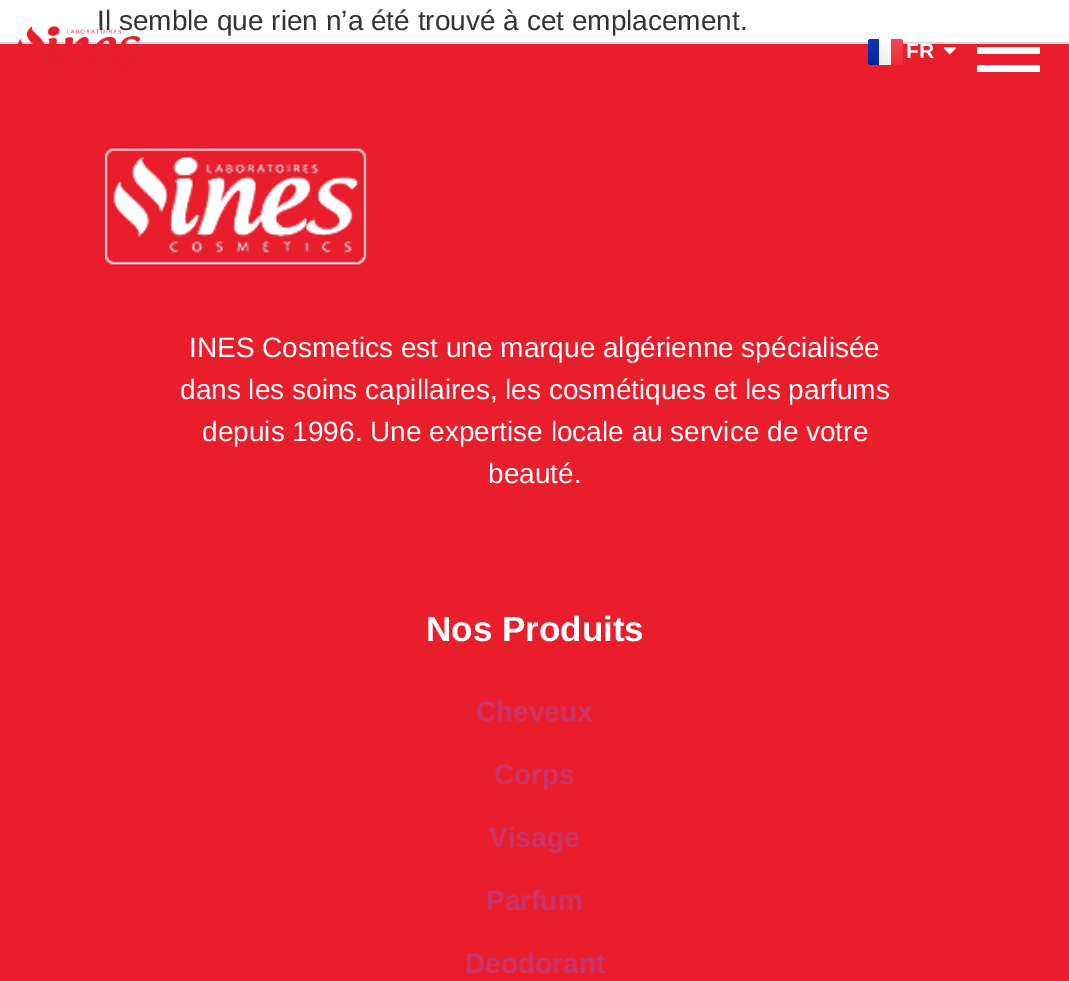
%!PS
<< /PageSize [1069 981] >> setpagedevice
/mt/moveto load def
/li/lineto load def
/ct/curveto load def
/cp/closepath load def
/gs/gsave load def
/gr/grestore load def
/co { dup -16 bitshift 255 div exch dup -8 bitshift 255 and 255 div exch 255 and 255 div setrgbcolor } def
/fn { [ exch dup neg 0 0 3 -1 roll 0 0 ] selectfont } def
/tx { co fn moveto show } def
/bx { co rectfill } def
/im { 5 dict begin { /h /w /y /x /name } { exch def } forall
  gsave x y translate w h scale
  w h 8 [w 0 0 h 0 0] name (r) file false 3 colorimage grestore end } def
0 981 translate 1 -1 scale
4 setmiterlimit
0 0 1069 981 16#FFFFFF bx
0 44 1069 937 16#EA1D2C bx
0 42 1069 2 16#D6D6D6 bx
gs 884 39 mt 898 39 li 901 39 903 41 903 44 ct 903 60 li 903 63 901 65 898 65 ct 884 65 li cp clip newpath
<< /ShadingType 2 /ColorSpace /DeviceRGB /Coords [893 39 893 65] /Extend [true true] /Function << /FunctionType 2 /Domain [0 1] /C0 [.957 .275 .325] /C1 [.933 .165 .224] /N 1 >> >> shfill gr
gs 873 39 mt 879 39 li 879 65 li 873 65 li 870 65 868 63 868 60 ct 868 44 li 868 41 870 39 873 39 ct cp clip newpath
<< /ShadingType 2 /ColorSpace /DeviceRGB /Coords [872 39 872 65] /Extend [true true] /Function << /FunctionType 2 /Domain [0 1] /C0 [.063 .208 .733] /C1 [.016 .137 .588] /N 1 >> >> shfill gr
gs 879 39 mt 891 39 li 891 65 li 879 65 li cp clip newpath
<< /ShadingType 2 /ColorSpace /DeviceRGB /Coords [885 39 885 65] /Extend [true true] /Function << /FunctionType 2 /Domain [0 1] /C0 [1 1 1] /C1 [.941 .941 .941] /N 1 >> >> shfill gr
(media/2.raw) 943 47 13 8 im
977 47 63 7 16#FFFFFF bx
977 65 63 7 16#FFFFFF bx
(media/3.raw) 105 148 262 117 im
(Il semble que rien n’a été trouvé à cet emplacement.) 97 30 /LiberationSans-Regular 28 16#333333 tx
(media/1.raw) 17 26 123 49 im
(FR) 906 58 /LiberationSans-Bold 21 16#FFFFFF tx
(INES Cosmetics est une marque algérienne spécialisée) 189 357 /LiberationSans-Regular 28 16#FFFFFF tx
(dans les soins capillaires, les cosmétiques et les parfums) 180 399 /LiberationSans-Regular 28 16#FFFFFF tx
(depuis 1996. Une expertise locale au service de votre) 202 441 /LiberationSans-Regular 28 16#FFFFFF tx
(beauté.) 488 483 /LiberationSans-Regular 28 16#FFFFFF tx
(Nos Produits) 426 641 /LiberationSans-Bold 35 16#FFFFFF tx
(Cheveux) 476 721 /LiberationSans-Bold 28 16#CC3366 tx
(Corps) 494 784 /LiberationSans-Bold 28 16#CC3366 tx
(Visage) 489 847 /LiberationSans-Bold 28 16#CC3366 tx
(Parfum) 486 910 /LiberationSans-Bold 28 16#CC3366 tx
(Deodorant) 465 973 /LiberationSans-Bold 28 16#CC3366 tx
showpage
